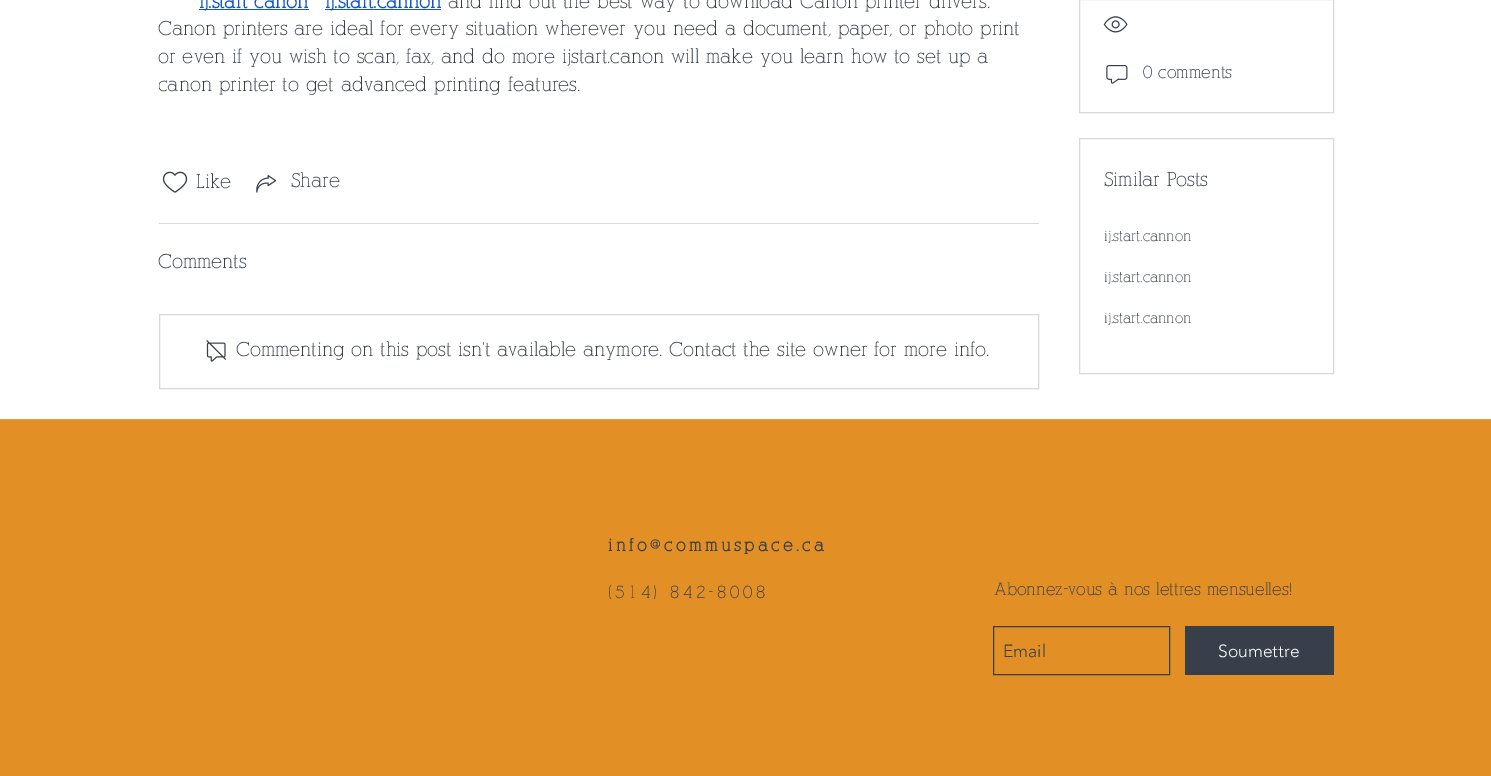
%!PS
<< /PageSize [1491 776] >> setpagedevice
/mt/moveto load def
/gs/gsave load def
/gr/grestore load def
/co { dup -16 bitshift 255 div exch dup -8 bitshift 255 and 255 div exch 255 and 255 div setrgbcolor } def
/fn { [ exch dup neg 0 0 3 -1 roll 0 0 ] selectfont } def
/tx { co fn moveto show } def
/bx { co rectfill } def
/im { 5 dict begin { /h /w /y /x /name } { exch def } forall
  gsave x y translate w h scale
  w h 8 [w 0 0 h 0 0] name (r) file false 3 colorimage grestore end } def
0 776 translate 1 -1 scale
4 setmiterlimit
0 0 1491 776 16#FFFFFF bx
199 9 110 1 16#1155CC bx
325 9 116 1 16#1155CC bx
(media/1.raw) 162 171 26 22 im
(media/2.raw) 256 175 21 18 im
159 223 880 1 16#D7D9DB bx
159.5 314.5 879 74 rectstroke
(media/3.raw) 206 340 20 22 im
1079.5 -.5 254 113 rectstroke
(media/4.raw) 1103 16 25 17 im
(media/5.raw) 1106 65 22 19 im
1079.5 138.5 254 235 rectstroke
0 420 1491 356 16#E28F26 bx
0 419 1491 1 16#E6A047 bx
16#383F4A co
993.5 626.5 176 48 rectstroke
1185 626 149 49 16#383F4A bx
(ij.start canon) 199 8 /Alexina-Bold 20 16#1155CC tx
(ij.start.cannon) 325 8 /Alexina-Bold 20 16#1155CC tx
(and find out the best way to download Canon printer drivers.) 448 8 /Alexina-Regular 20 16#383F4A tx
(Canon printers are ideal for every situation wherever you need a document, paper, or photo print) 158 35 /Alexina-Regular 20 16#383F4A tx
(or even if you wish to scan, fax, and do more ijstart.canon will make you learn how to set up a) 158 63 /Alexina-Regular 20 16#383F4A tx
gs
159 0 880 130 rectclip
(canon printer to get advanced printing features.) 158 91 /Alexina-Regular 20 16#383F4A tx
gr
(Like) 196 188 /Alexina-Regular 20 16#383F4A tx
(Share) 291 187 /Alexina-Regular 20 16#383F4A tx
(Comments) 158 268 /Alexina-Regular 20 16#383F4A tx
(Commenting on this post isn't available anymore. Contact the site owner for more info.) 236 356 /Alexina-Regular 20 16#383F4A tx
(0 comments) 1143 78 /Alexina-Regular 17.5 16#383F4A tx
(Similar Posts) 1104 186 /Alexina-Regular 20 16#383F4A tx
(ij.start.cannon) 1104 241 /Alexina-Regular 15 16#383F4A tx
(ij.start.cannon) 1104 282 /Alexina-Regular 15 16#383F4A tx
(ij.start.cannon) 1104 323 /Alexina-Regular 15 16#383F4A tx
/Alexina-Bold 17.5 fn
608 551 mt 3.5 0 (info@commuspace.ca) ashow
/Alexina-Regular 17.5 fn
608 598 mt 3.5 0 (\(514\) 842-8008) ashow
(Abonnez-vous à nos lettres mensuelles!) 994 595 /Alexina-Regular 17.5 16#383F4A tx
(Email) 1003 657 /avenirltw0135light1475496-Light 17.5 16#383F4A tx
(Soumettre) 1218 657 /avenirltw0135light1475496-Light 17.5 16#FFFFFF tx
showpage
